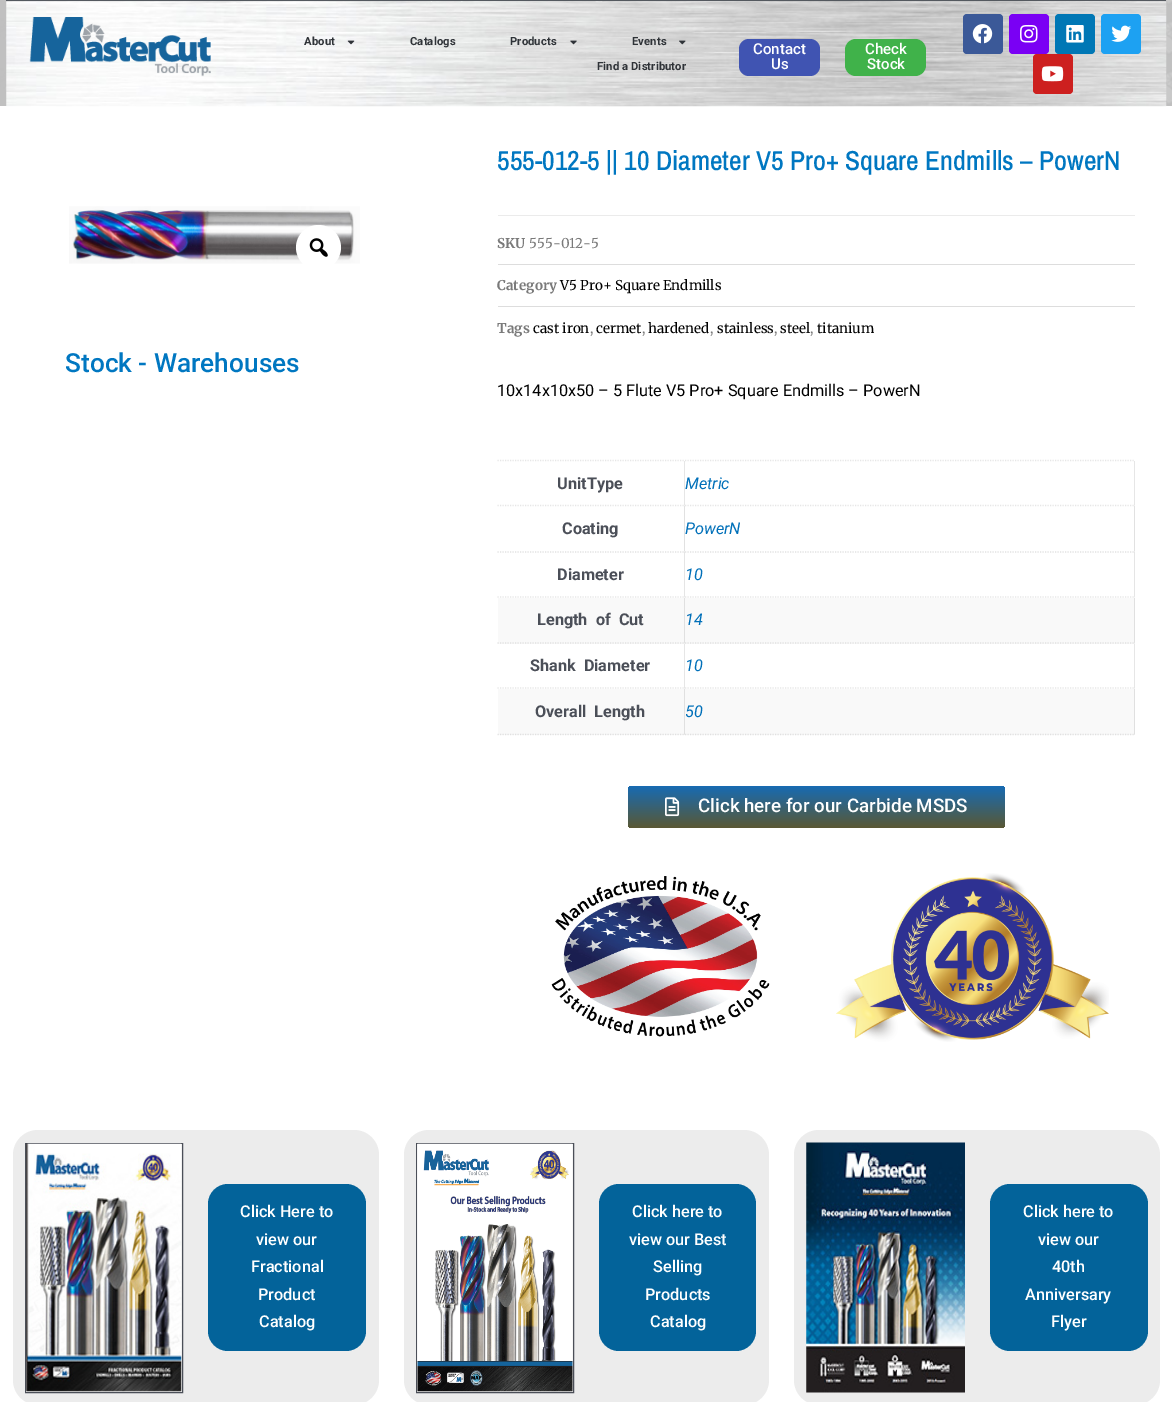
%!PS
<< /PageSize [1172 1402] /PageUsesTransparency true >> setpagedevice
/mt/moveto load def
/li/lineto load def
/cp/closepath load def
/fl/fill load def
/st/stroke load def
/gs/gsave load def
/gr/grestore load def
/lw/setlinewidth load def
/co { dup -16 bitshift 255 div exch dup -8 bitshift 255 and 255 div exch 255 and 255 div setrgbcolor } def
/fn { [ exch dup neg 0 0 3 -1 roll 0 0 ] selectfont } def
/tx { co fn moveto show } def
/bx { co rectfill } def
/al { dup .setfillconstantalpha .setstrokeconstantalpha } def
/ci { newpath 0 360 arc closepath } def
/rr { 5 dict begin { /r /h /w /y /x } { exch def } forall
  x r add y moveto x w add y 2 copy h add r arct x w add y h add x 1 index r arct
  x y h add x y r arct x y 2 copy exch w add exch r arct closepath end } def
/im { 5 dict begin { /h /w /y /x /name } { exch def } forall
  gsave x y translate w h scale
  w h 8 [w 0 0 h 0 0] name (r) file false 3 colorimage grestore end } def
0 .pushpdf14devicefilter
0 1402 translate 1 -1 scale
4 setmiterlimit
0 0 1172 1402 16#FFFFFF bx
(media/1.raw) 0 0 1172 106 im
6 0 1160 1 16#54595F bx
(media/2.raw) 6 1 1161 106 im
(media/3.raw) 29 17 182 60 im
(media/4.raw) 347 40 8 5 im
(media/5.raw) 570 40 7 5 im
(media/6.raw) 679 40 7 5 im
16#4054B2 co
739 39 81 37 10 rr fl
16#40B24A co
845 39 81 37 11 rr fl
16#3B5998 co
963 14 40 40 4 rr fl
(media/7.raw) 972 24 21 20 im
16#7A00F4 co
1009 14 40 40 4 rr fl
(media/8.raw) 1020 24 18 19 im
16#0077B5 co
1055 14 40 40 4 rr fl
(media/9.raw) 1066 25 18 18 im
16#1DA1F2 co
1101 14 40 40 4 rr fl
(media/10.raw) 1111 25 21 17 im
16#CD201F co
1033 54 40 40 4 rr fl
(media/11.raw) 1041 66 23 16 im
(media/12.raw) 69 206 291 58 im
gs
69 206 291 58 rectclip
16#FFFFFF co
318.5 247.5 22.5 ci fl
gr
(media/13.raw) 309 238 19 19 im
498 215 637 1 16#EBEBEB bx
498 264 637 1 16#DDDDDD bx
498 306 637 1 16#DDDDDD bx
16#E6E6E6 co
1.2 lw
[1.25 1.25] 0 setdash
497.5 460.5 mt 1135 460.5 li st
685 461 mt 685 506 li 684 505 li 684 461 li cp fl
497.5 505.5 mt 685 505.5 li st
1135 461 mt 1135 506 li 1134 505 li 1134 461 li cp fl
685 505.5 mt 1135 505.5 li st
16#E1E1E1 co
685 506 mt 685 552 li 684 551 li 684 506 li cp fl
497.5 552 mt 685 552 li st
1135 506 mt 1135 552 li 1134 551 li 1134 506 li cp fl
685 552 mt 1135 552 li st
0.1 al
16#000000 co
685 552 mt 685 598 li 684 596 li 684 552 li cp fl
1 al
16#E6E6E6 co
497.5 597 mt 685 597 li st
0.1 al
16#000000 co
1135 552 mt 1135 598 li 1134 596 li 1134 552 li cp fl
1 al
16#E6E6E6 co
685 597 mt 1135 597 li st
498 598 637 46 16#F9F9F9 bx
16#E0E0E0 co
685 598 mt 685 644 li 684 642 li 684 598 li cp fl
497.5 643 mt 685 643 li st
1135 598 mt 1135 644 li 1134 642 li 1134 598 li cp fl
685 643 mt 1135 643 li st
16#E6E6E6 co
685 644 mt 685 689 li 684 688 li 684 644 li cp fl
497.5 688 mt 685 688 li st
1135 644 mt 1135 689 li 1134 688 li 1134 644 li cp fl
685 688 mt 1135 688 li st
498 689 637 46 16#F9F9F9 bx
16#E0E0E0 co
685 689 mt 685 735 li 684 734 li 684 689 li cp fl
0.1 al
16#000000 co
497.5 734.5 mt 685 734.5 li st
1 al
16#E0E0E0 co
1135 689 mt 1135 735 li 1134 734 li 1134 689 li cp fl
685 734.5 mt 1135 734.5 li st
gs 628 786 377 42 4 rr clip newpath
<< /ShadingType 2 /ColorSpace /DeviceRGB /Coords [816 786 816 828] /Extend [true true] /Function << /FunctionType 2 /Domain [0 1] /C0 [.09 .42 .702] /C1 [.353 .345 .204] /N 1 >> >> shfill gr
(media/14.raw) 665 797 15 20 im
(media/15.raw) 551 876 219 161 im
(media/16.raw) 836 873 273 169 im
16#ECECEC co
13 1130 366 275 25 rr fl
16#4B4F58 co
1 lw
[] 0 setdash
25.5 1143.5 157 249 rectstroke
(media/17.raw) 26 1143 156 249 im
16#03639A co
208 1184 158 167 20 rr fl
16#ECECEC co
404 1130 365 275 25 rr fl
16#4B4F58 co
416.5 1143.5 157 249 rectstroke
(media/18.raw) 417 1143 156 249 im
16#03639A co
599 1184 157 167 20 rr fl
16#ECECEC co
794 1130 366 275 25 rr fl
(media/19.raw) 806 1142 159 251 im
16#03639A co
990 1184 158 167 20 rr fl
/Roboto-Bold 11.25 fn
16#2F3338 co
304 45 mt .1 0 (About) ashow
410 45 mt .1 0 (Catalogs) ashow
510 45 mt .1 0 (Products) ashow
632 45 mt .1 0 (Events) ashow
597 70 mt .1 0 (Find a Distributor) ashow
(Contact) 753 54 /Roboto-Medium 15 16#FFFFFF tx
(Us) 771 69 /Roboto-Medium 15 16#FFFFFF tx
(Check) 865 54 /Roboto-Medium 15 16#FFFFFF tx
(Stock) 867 69 /Roboto-Medium 15 16#FFFFFF tx
(Stock - Warehouses) 65 372 /Roboto-Medium 26.25 16#0077C1 tx
(555-012-5 || 10 Diameter V5 Pro+ Square Endmills – PowerN) 497 170 /ArchivoNarrow-Medium 27.5 16#0077C1 tx
(SKU) 497 248 /Merriweather-Bold 13.5 16#7A7A7A tx
(555-012-5) 529 248 /Merriweather-Regular 13.5 16#7A7A7A tx
(Category) 497 290 /Merriweather-Bold 13.5 16#7A7A7A tx
(V5 Pro+ Square Endmills) 560 290 /Merriweather-Regular 13.5 16#000000 tx
(Tags) 497 333 /Merriweather-Bold 13.5 16#7A7A7A tx
(cast iron) 533 333 /Merriweather-Regular 13.5 16#000000 tx
(,) 590 333 /Merriweather-Regular 13.5 16#7A7A7A tx
(cermet) 596 333 /Merriweather-Regular 13.5 16#000000 tx
(,) 642 333 /Merriweather-Regular 13.5 16#7A7A7A tx
(hardened) 648 333 /Merriweather-Regular 13.5 16#000000 tx
(,) 710 333 /Merriweather-Regular 13.5 16#7A7A7A tx
(stainless) 717 333 /Merriweather-Regular 13.5 16#000000 tx
(,) 774 333 /Merriweather-Regular 13.5 16#7A7A7A tx
(steel) 780 333 /Merriweather-Regular 13.5 16#000000 tx
(,) 810 333 /Merriweather-Regular 13.5 16#7A7A7A tx
(titanium) 817 333 /Merriweather-Regular 13.5 16#000000 tx
(10x14x10x50 – 5 Flute V5 Pro+ Square Endmills – PowerN) 497 396 /Roboto-Regular 16.25 16#000000 tx
(UnitType) 557 489 /Roboto-Bold 16.25 16#4B4F58 tx
(Metric) 685 489 /Roboto-Italic 16.25 16#0170B9 tx
(Coating) 562 534 /Roboto-Bold 16.25 16#4B4F58 tx
(PowerN) 685 534 /Roboto-Italic 16.25 16#0170B9 tx
(Diameter) 557 580 /Roboto-Bold 16.25 16#4B4F58 tx
(10) 685 580 /Roboto-Italic 16.25 16#0170B9 tx
/Roboto-Bold 16.25 fn
16#4B4F58 co
537 625 mt 4 0 32 (Length of Cut) widthshow
(14) 685 625 /Roboto-Italic 16.25 16#0170B9 tx
/Roboto-Bold 16.25 fn
16#4B4F58 co
530 671 mt 4 0 32 (Shank Diameter) widthshow
(10) 685 671 /Roboto-Italic 16.25 16#0170B9 tx
/Roboto-Bold 16.25 fn
16#4B4F58 co
535 717 mt 4 0 32 (Overall Length) widthshow
(50) 685 717 /Roboto-Italic 16.25 16#0170B9 tx
(Click here for our Carbide MSDS) 698 812 /Roboto-Medium 18.75 16#FFFFFF tx
(Click Here to) 240 1217 /Roboto-Medium 16.25 16#FFFFFF tx
(view our) 256 1245 /Roboto-Medium 16.25 16#FFFFFF tx
(Fractional) 251 1272 /Roboto-Medium 16.25 16#FFFFFF tx
(Product) 258 1300 /Roboto-Medium 16.25 16#FFFFFF tx
(Catalog) 259 1327 /Roboto-Medium 16.25 16#FFFFFF tx
(Click here to) 632 1217 /Roboto-Medium 16.25 16#FFFFFF tx
(view our Best) 629 1245 /Roboto-Medium 16.25 16#FFFFFF tx
(Selling) 653 1272 /Roboto-Medium 16.25 16#FFFFFF tx
(Products) 645 1300 /Roboto-Medium 16.25 16#FFFFFF tx
(Catalog) 650 1327 /Roboto-Medium 16.25 16#FFFFFF tx
(Click here to) 1023 1217 /Roboto-Medium 16.25 16#FFFFFF tx
(view our) 1038 1245 /Roboto-Medium 16.25 16#FFFFFF tx
(40th) 1052 1272 /Roboto-Medium 16.25 16#FFFFFF tx
(Anniversary) 1025 1300 /Roboto-Medium 16.25 16#FFFFFF tx
(Flyer) 1051 1327 /Roboto-Medium 16.25 16#FFFFFF tx
.poppdf14devicefilter showpage
